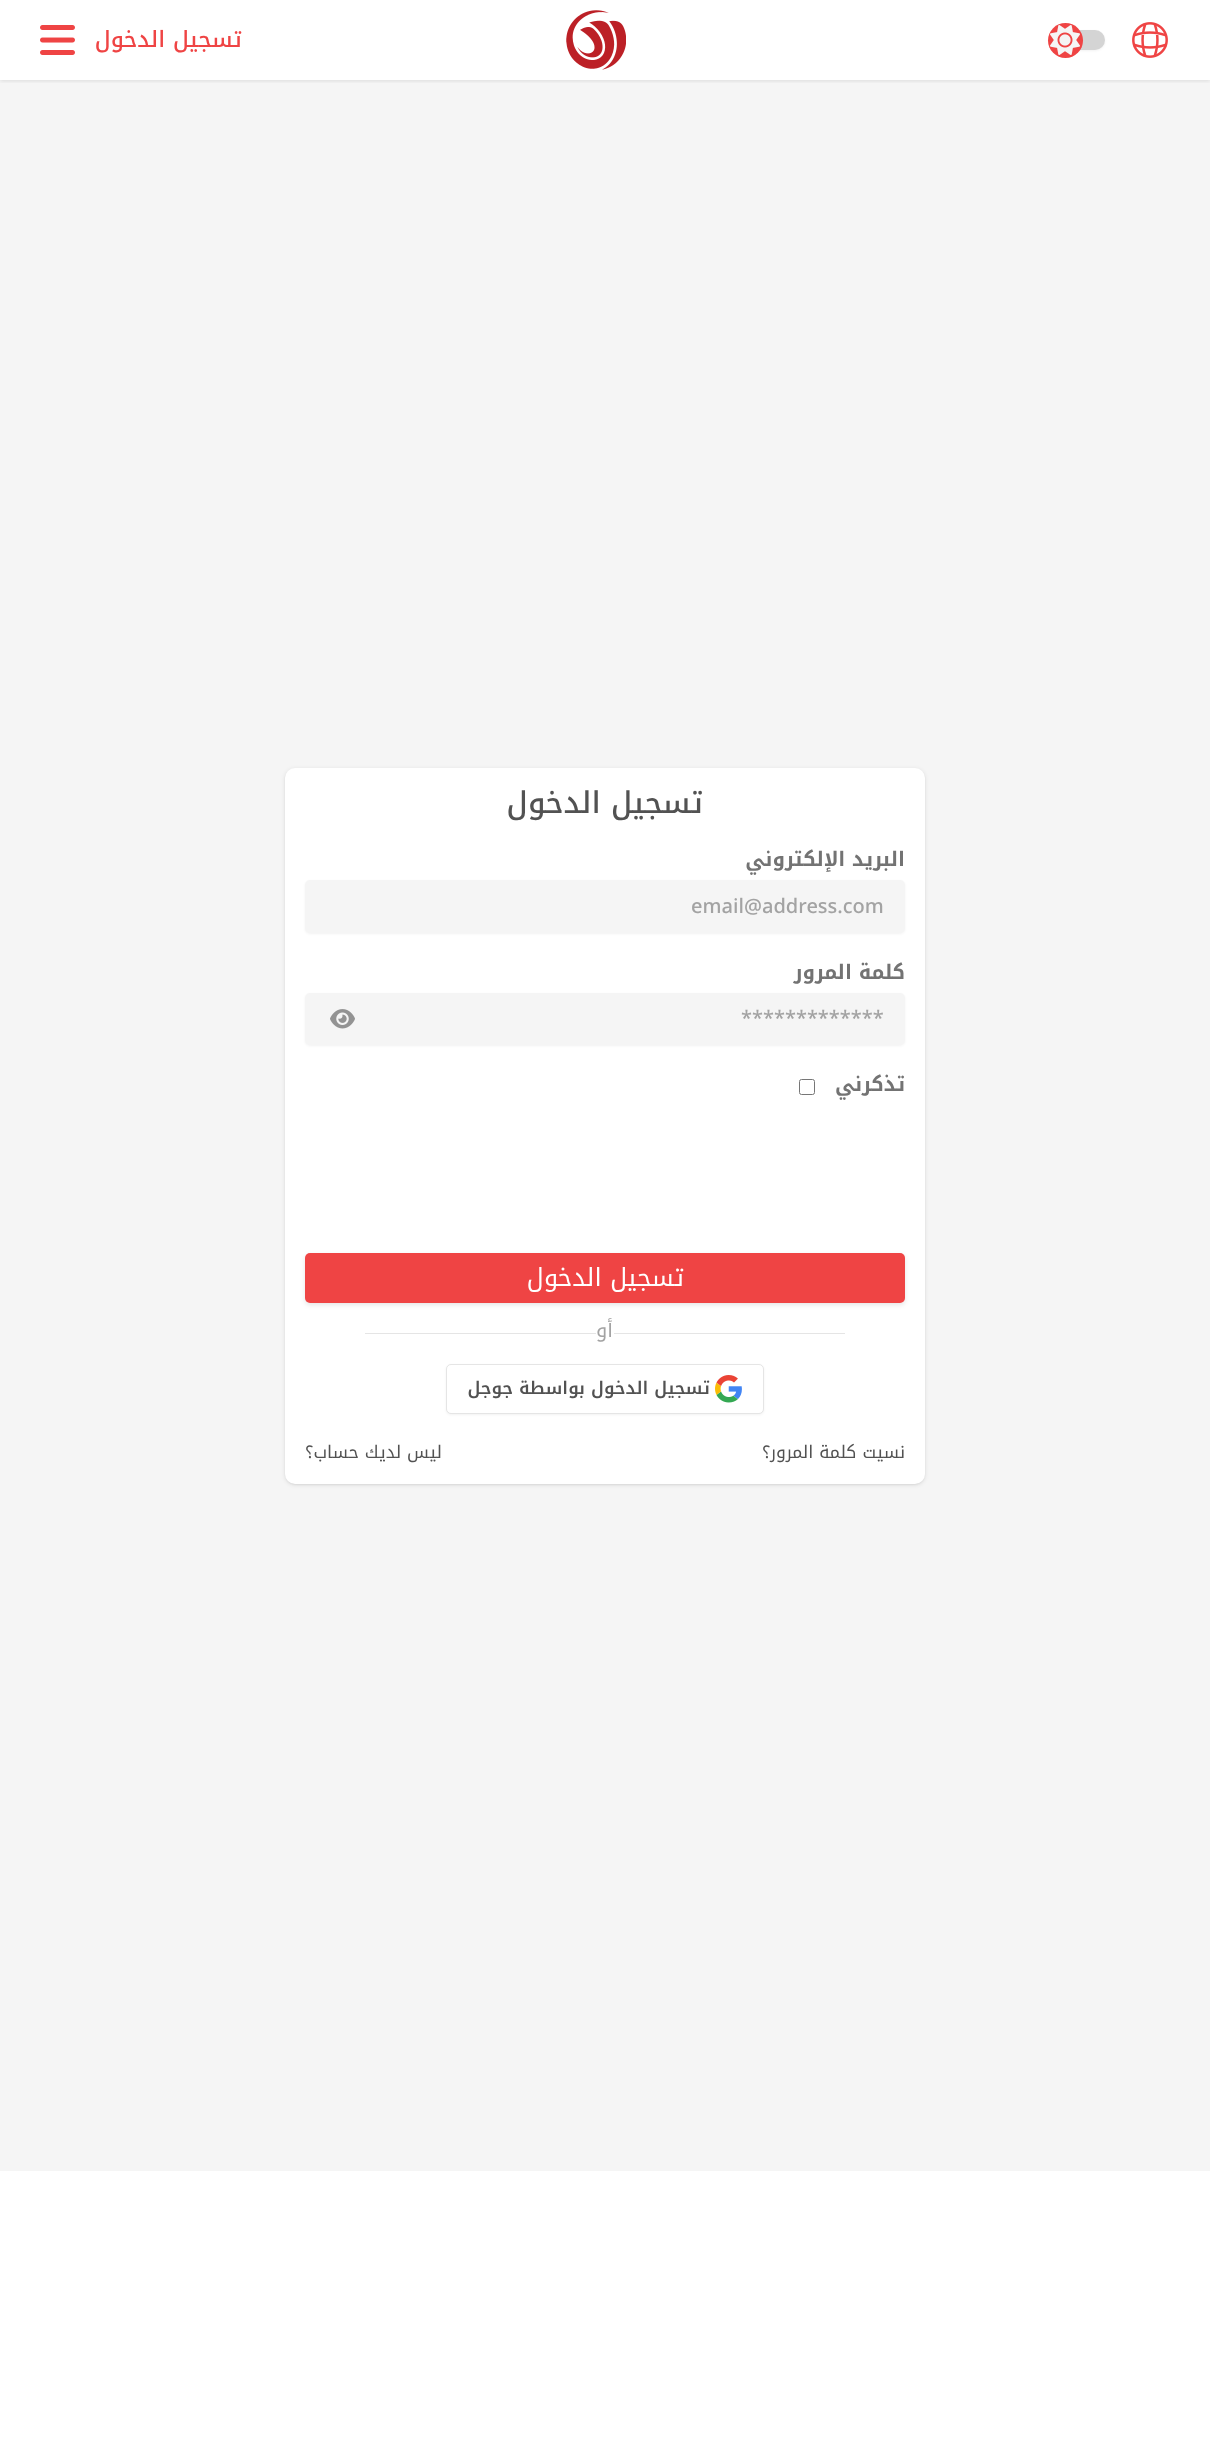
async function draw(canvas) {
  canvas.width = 1210
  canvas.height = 2460
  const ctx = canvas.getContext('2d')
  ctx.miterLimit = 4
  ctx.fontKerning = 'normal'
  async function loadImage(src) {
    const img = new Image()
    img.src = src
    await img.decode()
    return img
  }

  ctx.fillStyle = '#fff'
  ctx.fillRect(0, 0, 1210, 2460)
  ctx.fillStyle = '#f5f5f5'
  ctx.fillRect(0, 80, 1210, 2091)
  ctx.save()
  ctx.beginPath()
  ctx.rect(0, 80, 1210, 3)
  ctx.clip()
  ctx.fillStyle = '#0000001a'
  ctx.filter = 'blur(2px)'
  ctx.beginPath()
  ctx.rect(0, 1, 1210, 80)
  ctx.fill()
  ctx.filter = 'none'
  ctx.restore()
  ctx.drawImage(await loadImage('image0.png'), 1132, 22, 36, 36)
  ctx.fillStyle = '#0000000d'
  ctx.filter = 'blur(1px)'
  ctx.beginPath()
  ctx.roundRect(1065, 31, 40, 20, 10)
  ctx.fill()
  ctx.filter = 'none'
  ctx.fillStyle = '#d4d4d4'
  ctx.beginPath()
  ctx.roundRect(1065, 30, 40, 20, 10)
  ctx.fill()
  ctx.fillStyle = '#ef4444'
  ctx.beginPath()
  ctx.arc(1065.5, 40.5, 17.5, 0, 2 * Math.PI)
  ctx.fill()
  ctx.drawImage(await loadImage('image1.png'), 1050, 25, 30, 30)
  ctx.drawImage(await loadImage('image2.png'), 566, 10, 60, 60)
  ctx.direction = 'rtl'
  ctx.font = '500 22.5px Noto Kufi Arabic'
  ctx.fillText('تسجيل الدخول', 242, 47)
  ctx.drawImage(await loadImage('image3.png'), 40, 25, 35, 30)
  ctx.fillStyle = '#0000001a'
  ctx.filter = 'blur(1px)'
  ctx.beginPath()
  ctx.roundRect(286, 770, 638, 714, 9)
  ctx.fill()
  ctx.filter = 'none'
  ctx.filter = 'blur(2px)'
  ctx.beginPath()
  ctx.roundRect(285, 769, 640, 716, 10)
  ctx.fill()
  ctx.filter = 'none'
  ctx.fillStyle = '#fff'
  ctx.beginPath()
  ctx.roundRect(285, 768, 640, 716, 10)
  ctx.fill()
  ctx.font = '500 30px Noto Kufi Arabic'
  ctx.fillStyle = '#525252'
  ctx.fillText('تسجيل الدخول', 703, 813)
  ctx.font = 'bold 20px Noto Kufi Arabic'
  ctx.fillStyle = '#737373'
  ctx.fillText('البريد الإلكتروني', 905, 866)
  ctx.fillStyle = '#0000000d'
  ctx.filter = 'blur(1px)'
  ctx.beginPath()
  ctx.roundRect(305, 881, 600, 53, 5)
  ctx.fill()
  ctx.filter = 'none'
  ctx.fillStyle = '#f5f5f5'
  ctx.beginPath()
  ctx.roundRect(305, 880, 600, 53, 5)
  ctx.fill()
  ctx.direction = 'ltr'
  ctx.font = '500 20px Noto Kufi Arabic'
  ctx.fillStyle = '#a3a3a3'
  ctx.fillText('email@address.com', 691, 913)
  ctx.direction = 'rtl'
  ctx.font = 'bold 20px Noto Kufi Arabic'
  ctx.fillStyle = '#737373'
  ctx.fillText('كلمة المرور', 905, 979)
  ctx.fillStyle = '#0000000d'
  ctx.filter = 'blur(1px)'
  ctx.beginPath()
  ctx.roundRect(305, 994, 600, 52, 5)
  ctx.fill()
  ctx.filter = 'none'
  ctx.fillStyle = '#f5f5f5'
  ctx.beginPath()
  ctx.roundRect(305, 993, 600, 52, 5)
  ctx.fill()
  ctx.direction = 'ltr'
  ctx.font = '500 20px Noto Kufi Arabic'
  ctx.fillStyle = '#a3a3a3'
  ctx.fillText('*************', 741, 1025)
  ctx.drawImage(await loadImage('image4.png'), 330, 1009, 25, 20)
  ctx.direction = 'rtl'
  ctx.font = 'bold 20px Noto Kufi Arabic'
  ctx.fillStyle = '#737373'
  ctx.fillText('تذكرني', 905, 1091)
  ctx.beginPath()
  ctx.roundRect(799.5, 1079.5, 15, 15, 2)
  ctx.strokeStyle = '#767676'
  ctx.stroke()
  ctx.fillStyle = '#0000001a'
  ctx.filter = 'blur(2.5px)'
  ctx.beginPath()
  ctx.roundRect(305, 1255, 600, 50, 5)
  ctx.fill()
  ctx.filter = 'none'
  ctx.fillStyle = '#ef4444'
  ctx.beginPath()
  ctx.roundRect(305, 1253, 600, 50, 5)
  ctx.fill()
  ctx.font = '25px Noto Kufi Arabic'
  ctx.fillStyle = '#fff'
  ctx.fillText('تسجيل الدخول', 684, 1286)
  ctx.fillStyle = '#e5e5e5'
  ctx.fillRect(365, 1333, 480, 1)
  ctx.fillStyle = '#fff'
  ctx.fillRect(596, 1333, 18, 1)
  ctx.font = '20px Noto Kufi Arabic'
  ctx.fillStyle = '#a3a3a3'
  ctx.fillText('أو', 613, 1337)
  ctx.fillStyle = '#0000000d'
  ctx.filter = 'blur(1px)'
  ctx.beginPath()
  ctx.roundRect(446, 1365, 318, 50, 5)
  ctx.fill()
  ctx.filter = 'none'
  ctx.fillStyle = '#fff'
  ctx.beginPath()
  ctx.roundRect(446.5, 1364.5, 317, 49, 4.5)
  ctx.fill()
  ctx.strokeStyle = '#e5e5e5'
  ctx.stroke()
  ctx.drawImage(await loadImage('image5.png'), 715, 1375, 27, 28)
  ctx.font = '600 17.5px Noto Kufi Arabic'
  ctx.fillStyle = '#525252'
  ctx.fillText('تسجيل الدخول بواسطة جوجل', 710, 1394)
  ctx.font = '17.5px Noto Kufi Arabic'
  ctx.fillText('نسيت كلمة المرور؟', 905, 1458)
  ctx.fillText('ليس لديك حساب؟', 442, 1458)
}

draw(document.querySelector('canvas'))
